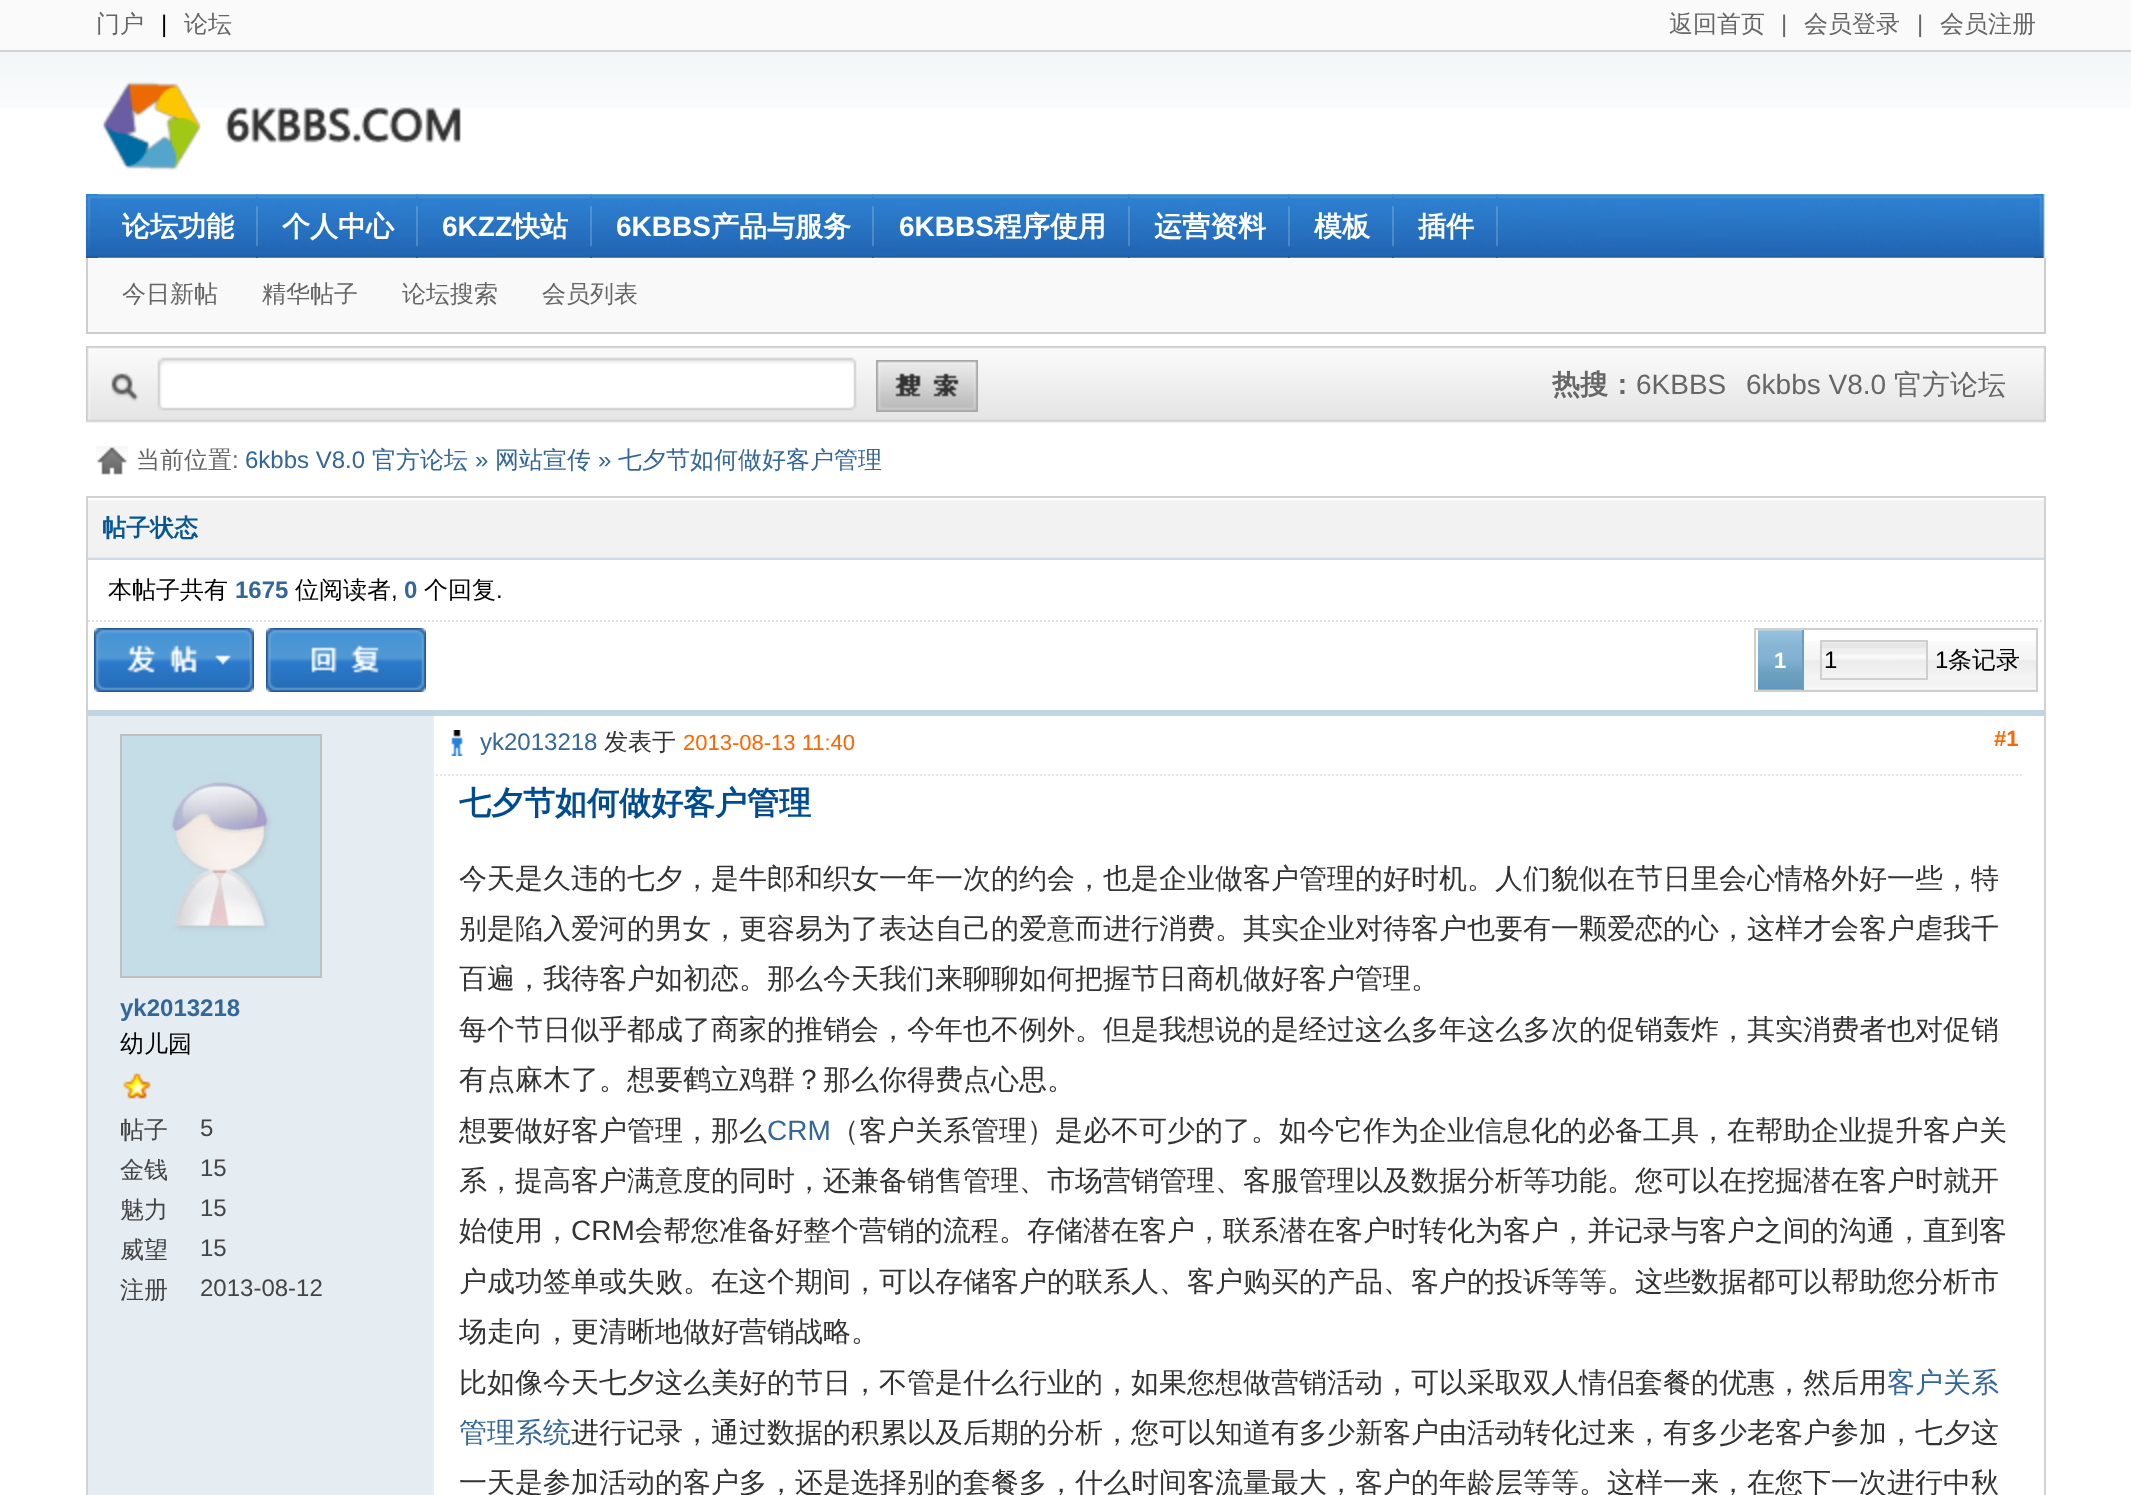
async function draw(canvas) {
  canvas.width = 2131
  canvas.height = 1495
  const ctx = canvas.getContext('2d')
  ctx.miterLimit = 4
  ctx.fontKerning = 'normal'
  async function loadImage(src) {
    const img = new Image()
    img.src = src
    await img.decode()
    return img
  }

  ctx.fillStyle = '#fff'
  ctx.fillRect(0, 0, 2131, 1495)
  ctx.drawImage(await loadImage('image0.png'), 0, 52, 2131, 56)
  ctx.fillStyle = '#fafafa'
  ctx.fillRect(0, 0, 2131, 50)
  ctx.fillStyle = '#d2d2d2'
  ctx.fillRect(0, 50, 2131, 2)
  ctx.font = '500 24px WenQuanYi Zen Hei'
  ctx.fillStyle = '#666'
  ctx.fillText('门户', 96, 32)
  ctx.font = '24px Liberation Sans'
  ctx.fillStyle = '#000'
  ctx.fillText('|', 161, 32)
  ctx.font = '500 24px WenQuanYi Zen Hei'
  ctx.fillStyle = '#666'
  ctx.fillText('论坛', 184, 32)
  ctx.fillText('返回首页', 1669, 32)
  ctx.font = '24px Liberation Sans'
  ctx.fillText('|', 1781, 32)
  ctx.font = '500 24px WenQuanYi Zen Hei'
  ctx.fillText('会员登录', 1804, 32)
  ctx.font = '24px Liberation Sans'
  ctx.fillText('|', 1917, 32)
  ctx.font = '500 24px WenQuanYi Zen Hei'
  ctx.fillText('会员注册', 1940, 32)
  ctx.drawImage(await loadImage('image1.png'), 102, 81, 359, 90)
  ctx.drawImage(await loadImage('image2.png'), 86, 194, 12, 64)
  ctx.drawImage(await loadImage('image3.png'), 98, 194, 1936, 64)
  ctx.drawImage(await loadImage('image4.png'), 256, 194, 2, 64)
  ctx.font = 'bold 28px WenQuanYi Zen Hei'
  ctx.fillStyle = '#fff'
  ctx.fillText('论坛功能', 122, 236)
  ctx.drawImage(await loadImage('image4.png'), 416, 194, 2, 64)
  ctx.fillText('个人中心', 282, 236)
  ctx.drawImage(await loadImage('image4.png'), 590, 194, 2, 64)
  ctx.font = 'bold 28px Liberation Sans'
  ctx.fillText('6KZZ', 442, 236)
  ctx.font = 'bold 28px WenQuanYi Zen Hei'
  ctx.fillText('快站', 512, 236)
  ctx.drawImage(await loadImage('image4.png'), 872, 194, 2, 64)
  ctx.font = 'bold 28px Liberation Sans'
  ctx.fillText('6KBBS', 616, 236)
  ctx.font = 'bold 28px WenQuanYi Zen Hei'
  ctx.fillText('产品与服务', 711, 236)
  ctx.drawImage(await loadImage('image4.png'), 1128, 194, 2, 64)
  ctx.font = 'bold 28px Liberation Sans'
  ctx.fillText('6KBBS', 899, 236)
  ctx.font = 'bold 28px WenQuanYi Zen Hei'
  ctx.fillText('程序使用', 994, 236)
  ctx.drawImage(await loadImage('image4.png'), 1288, 194, 2, 64)
  ctx.fillText('运营资料', 1154, 236)
  ctx.drawImage(await loadImage('image4.png'), 1392, 194, 2, 64)
  ctx.fillText('模板', 1314, 236)
  ctx.drawImage(await loadImage('image4.png'), 1496, 194, 2, 64)
  ctx.fillText('插件', 1418, 236)
  ctx.drawImage(await loadImage('image5.png'), 2034, 194, 11, 64)
  ctx.fillStyle = '#f9f9f9'
  ctx.fillRect(88, 258, 1956, 74)
  ctx.fillStyle = '#cdcdcd'
  ctx.fillRect(2044, 258, 2, 76)
  ctx.fillRect(86, 332, 1960, 2)
  ctx.fillRect(86, 258, 2, 76)
  ctx.font = '500 24px WenQuanYi Zen Hei'
  ctx.fillStyle = '#666'
  ctx.fillText('今日新帖', 122, 302)
  ctx.fillText('精华帖子', 262, 302)
  ctx.fillText('论坛搜索', 402, 302)
  ctx.fillText('会员列表', 542, 302)
  ctx.drawImage(await loadImage('image6.png'), 86, 346, 1960, 77)
  ctx.drawImage(await loadImage('image7.png'), 876, 360, 102, 52)
  ctx.font = 'bold 28px WenQuanYi Zen Hei'
  ctx.fillText('热搜：', 1552, 394)
  ctx.font = '28px Liberation Sans'
  ctx.fillText('6KBBS', 1636, 394)
  ctx.fillText('6kbbs V8.0', 1746, 394)
  ctx.font = '500 28px WenQuanYi Zen Hei'
  ctx.fillText('官方论坛', 1894, 394)
  ctx.drawImage(await loadImage('image8.png'), 2043, 347, 3, 74)
  ctx.drawImage(await loadImage('image9.png'), 96, 446, 32, 29)
  ctx.font = '500 24px WenQuanYi Zen Hei'
  ctx.fillText('当前位置', 136, 468)
  ctx.font = '24px Liberation Sans'
  ctx.fillText(':', 232, 468)
  ctx.fillStyle = '#369'
  ctx.fillText('6kbbs V8.0', 245, 468)
  ctx.font = '500 24px WenQuanYi Zen Hei'
  ctx.fillText('官方论坛', 372, 468)
  ctx.font = '24px Liberation Sans'
  ctx.fillText('»', 475, 468)
  ctx.font = '500 24px WenQuanYi Zen Hei'
  ctx.fillText('网站宣传', 495, 468)
  ctx.font = '24px Liberation Sans'
  ctx.fillText('»', 598, 468)
  ctx.font = '500 24px WenQuanYi Zen Hei'
  ctx.fillText('七夕节如何做好客户管理', 618, 468)
  ctx.strokeStyle = '#d2d2d2'
  ctx.lineWidth = 2
  ctx.strokeRect(87, 497, 1958, 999)
  ctx.drawImage(await loadImage('image10.png'), 88, 500, 1956, 60)
  ctx.font = 'bold 24px WenQuanYi Zen Hei'
  ctx.fillStyle = '#065792'
  ctx.fillText('帖子状态', 102, 536)
  ctx.beginPath()
  ctx.moveTo(88, 621)
  ctx.lineTo(2044, 621)
  ctx.strokeStyle = '#e0e0e0'
  ctx.setLineDash([2, 2])
  ctx.stroke()
  ctx.font = '500 24px WenQuanYi Zen Hei'
  ctx.fillStyle = '#000'
  ctx.fillText('本帖子共有', 108, 598)
  ctx.font = 'bold 24px Liberation Sans'
  ctx.fillStyle = '#369'
  ctx.fillText('1675', 235, 598)
  ctx.font = '500 24px WenQuanYi Zen Hei'
  ctx.fillStyle = '#000'
  ctx.fillText('位阅读者', 295, 598)
  ctx.font = '24px Liberation Sans'
  ctx.fillText(',', 391, 598)
  ctx.font = 'bold 24px Liberation Sans'
  ctx.fillStyle = '#369'
  ctx.fillText('0', 404, 598)
  ctx.font = '500 24px WenQuanYi Zen Hei'
  ctx.fillStyle = '#000'
  ctx.fillText('个回复', 424, 598)
  ctx.font = '24px Liberation Sans'
  ctx.fillText('.', 496, 598)
  ctx.drawImage(await loadImage('image11.png'), 94, 628, 160, 64)
  ctx.drawImage(await loadImage('image12.png'), 266, 628, 160, 64)
  ctx.drawImage(await loadImage('image13.png'), 1758, 689, 44, 1)
  ctx.fillStyle = '#cecfca'
  ctx.fillRect(1754, 628, 284, 2)
  ctx.fillRect(1754, 690, 50, 2)
  ctx.fillRect(1754, 628, 2, 64)
  ctx.drawImage(await loadImage('image14.png'), 1758, 630, 44, 60)
  ctx.fillStyle = '#6b9fc0'
  ctx.fillRect(1802, 630, 2, 60)
  ctx.font = 'bold 22px Liberation Sans'
  ctx.fillStyle = '#fff'
  ctx.fillText('1', 1774, 668)
  ctx.drawImage(await loadImage('image15.png'), 1804, 641, 232, 49)
  ctx.fillStyle = '#cecfca'
  ctx.fillRect(2036, 628, 2, 64)
  ctx.fillRect(1804, 690, 234, 2)
  ctx.drawImage(await loadImage('image16.png'), 1822, 642, 104, 16)
  ctx.strokeStyle = '#cfcfcd'
  ctx.setLineDash([])
  ctx.strokeRect(1821, 641, 106, 38)
  ctx.font = '24px Liberation Sans'
  ctx.fillStyle = '#000'
  ctx.fillText('1', 1824, 668)
  ctx.fillText('1', 1935, 668)
  ctx.font = '500 24px WenQuanYi Zen Hei'
  ctx.fillText('条记录', 1948, 668)
  ctx.fillStyle = '#e4eff5'
  ctx.fillRect(432, 712, 2, 783)
  ctx.fillStyle = '#c2d5e3'
  ctx.fillRect(88, 710, 1956, 6)
  ctx.fillStyle = '#e5edf2'
  ctx.fillRect(88, 716, 344, 779)
  ctx.strokeStyle = '#c0c0c0'
  ctx.strokeRect(121, 735, 200, 242)
  ctx.drawImage(await loadImage('image17.png'), 122, 736, 198, 240)
  ctx.font = 'bold 24px Liberation Sans'
  ctx.fillStyle = '#369'
  ctx.fillText('yk2013218', 120, 1016)
  ctx.font = '500 24px WenQuanYi Zen Hei'
  ctx.fillStyle = '#000'
  ctx.fillText('幼儿园', 120, 1052)
  ctx.drawImage(await loadImage('image18.png'), 123, 1073, 28, 26)
  ctx.fillStyle = '#444'
  ctx.fillText('帖子', 120, 1138)
  ctx.font = '24px Liberation Sans'
  ctx.fillText('5', 200, 1136)
  ctx.font = '500 24px WenQuanYi Zen Hei'
  ctx.fillText('金钱', 120, 1178)
  ctx.font = '24px Liberation Sans'
  ctx.fillText('15', 200, 1176)
  ctx.font = '500 24px WenQuanYi Zen Hei'
  ctx.fillText('魅力', 120, 1218)
  ctx.font = '24px Liberation Sans'
  ctx.fillText('15', 200, 1216)
  ctx.font = '500 24px WenQuanYi Zen Hei'
  ctx.fillText('威望', 120, 1258)
  ctx.font = '24px Liberation Sans'
  ctx.fillText('15', 200, 1256)
  ctx.font = '500 24px WenQuanYi Zen Hei'
  ctx.fillText('注册', 120, 1298)
  ctx.font = '24px Liberation Sans'
  ctx.fillText('2013-08-12', 200, 1296)
  ctx.beginPath()
  ctx.moveTo(436, 775)
  ctx.lineTo(1844, 775)
  ctx.strokeStyle = '#e6e7e1'
  ctx.setLineDash([2, 2])
  ctx.stroke()
  ctx.drawImage(await loadImage('image19.png'), 451, 730, 12, 26)
  ctx.fillStyle = '#369'
  ctx.fillText('yk2013218', 480, 750)
  ctx.font = '500 24px WenQuanYi Zen Hei'
  ctx.fillStyle = '#333'
  ctx.fillText('发表于', 604, 750)
  ctx.font = '22px Liberation Sans'
  ctx.fillStyle = '#f60'
  ctx.fillText('2013-08-13 11:40', 683, 750)
  ctx.beginPath()
  ctx.moveTo(1844, 775)
  ctx.lineTo(2024, 775)
  ctx.stroke()
  ctx.font = 'bold 22px Liberation Sans'
  ctx.fillText('#1', 1994, 746)
  ctx.font = 'bold 32px WenQuanYi Zen Hei'
  ctx.fillStyle = '#014c90'
  ctx.fillText('七夕节如何做好客户管理', 459, 814)
  ctx.font = '500 28px WenQuanYi Zen Hei'
  ctx.fillStyle = '#333'
  ctx.fillText('今天是久违的七夕，是牛郎和织女一年一次的约会，也是企业做客户管理的好时机。人们貌似在节日里会心情格外好一些，特', 459, 888)
  ctx.fillText('别是陷入爱河的男女，更容易为了表达自己的爱意而进行消费。其实企业对待客户也要有一颗爱恋的心，这样才会客户虐我千', 459, 938)
  ctx.fillText('百遍，我待客户如初恋。那么今天我们来聊聊如何把握节日商机做好客户管理。', 459, 988)
  ctx.fillText('每个节日似乎都成了商家的推销会，今年也不例外。但是我想说的是经过这么多年这么多次的促销轰炸，其实消费者也对促销', 459, 1039)
  ctx.fillText('有点麻木了。想要鹤立鸡群？那么你得费点心思。', 459, 1089)
  ctx.fillText('想要做好客户管理，那么', 459, 1140)
  ctx.font = '28px Liberation Sans'
  ctx.fillStyle = '#369'
  ctx.fillText('CRM', 767, 1140)
  ctx.font = '500 28px WenQuanYi Zen Hei'
  ctx.fillStyle = '#333'
  ctx.fillText('（客户关系管理）是必不可少的了。如今它作为企业信息化的必备工具，在帮助企业提升客户关', 831, 1140)
  ctx.fillText('系，提高客户满意度的同时，还兼备销售管理、市场营销管理、客服管理以及数据分析等功能。您可以在挖掘潜在客户时就开', 459, 1190)
  ctx.fillText('始使用，', 459, 1240)
  ctx.font = '28px Liberation Sans'
  ctx.fillText('CRM', 571, 1240)
  ctx.font = '500 28px WenQuanYi Zen Hei'
  ctx.fillText('会帮您准备好整个营销的流程。存储潜在客户，联系潜在客户时转化为客户，并记录与客户之间的沟通，直到客', 635, 1240)
  ctx.fillText('户成功签单或失败。在这个期间，可以存储客户的联系人、客户购买的产品、客户的投诉等等。这些数据都可以帮助您分析市', 459, 1291)
  ctx.fillText('场走向，更清晰地做好营销战略。', 459, 1341)
  ctx.fillText('比如像今天七夕这么美好的节日，不管是什么行业的，如果您想做营销活动，可以采取双人情侣套餐的优惠，然后用', 459, 1392)
  ctx.fillStyle = '#369'
  ctx.fillText('客户关系', 1887, 1392)
  ctx.fillText('管理系统', 459, 1442)
  ctx.fillStyle = '#333'
  ctx.fillText('进行记录，通过数据的积累以及后期的分析，您可以知道有多少新客户由活动转化过来，有多少老客户参加，七夕这', 571, 1442)
  ctx.fillText('一天是参加活动的客户多，还是选择别的套餐多，什么时间客流量最大，客户的年龄层等等。这样一来，在您下一次进行中秋', 459, 1492)
}

draw(document.querySelector('canvas'))
